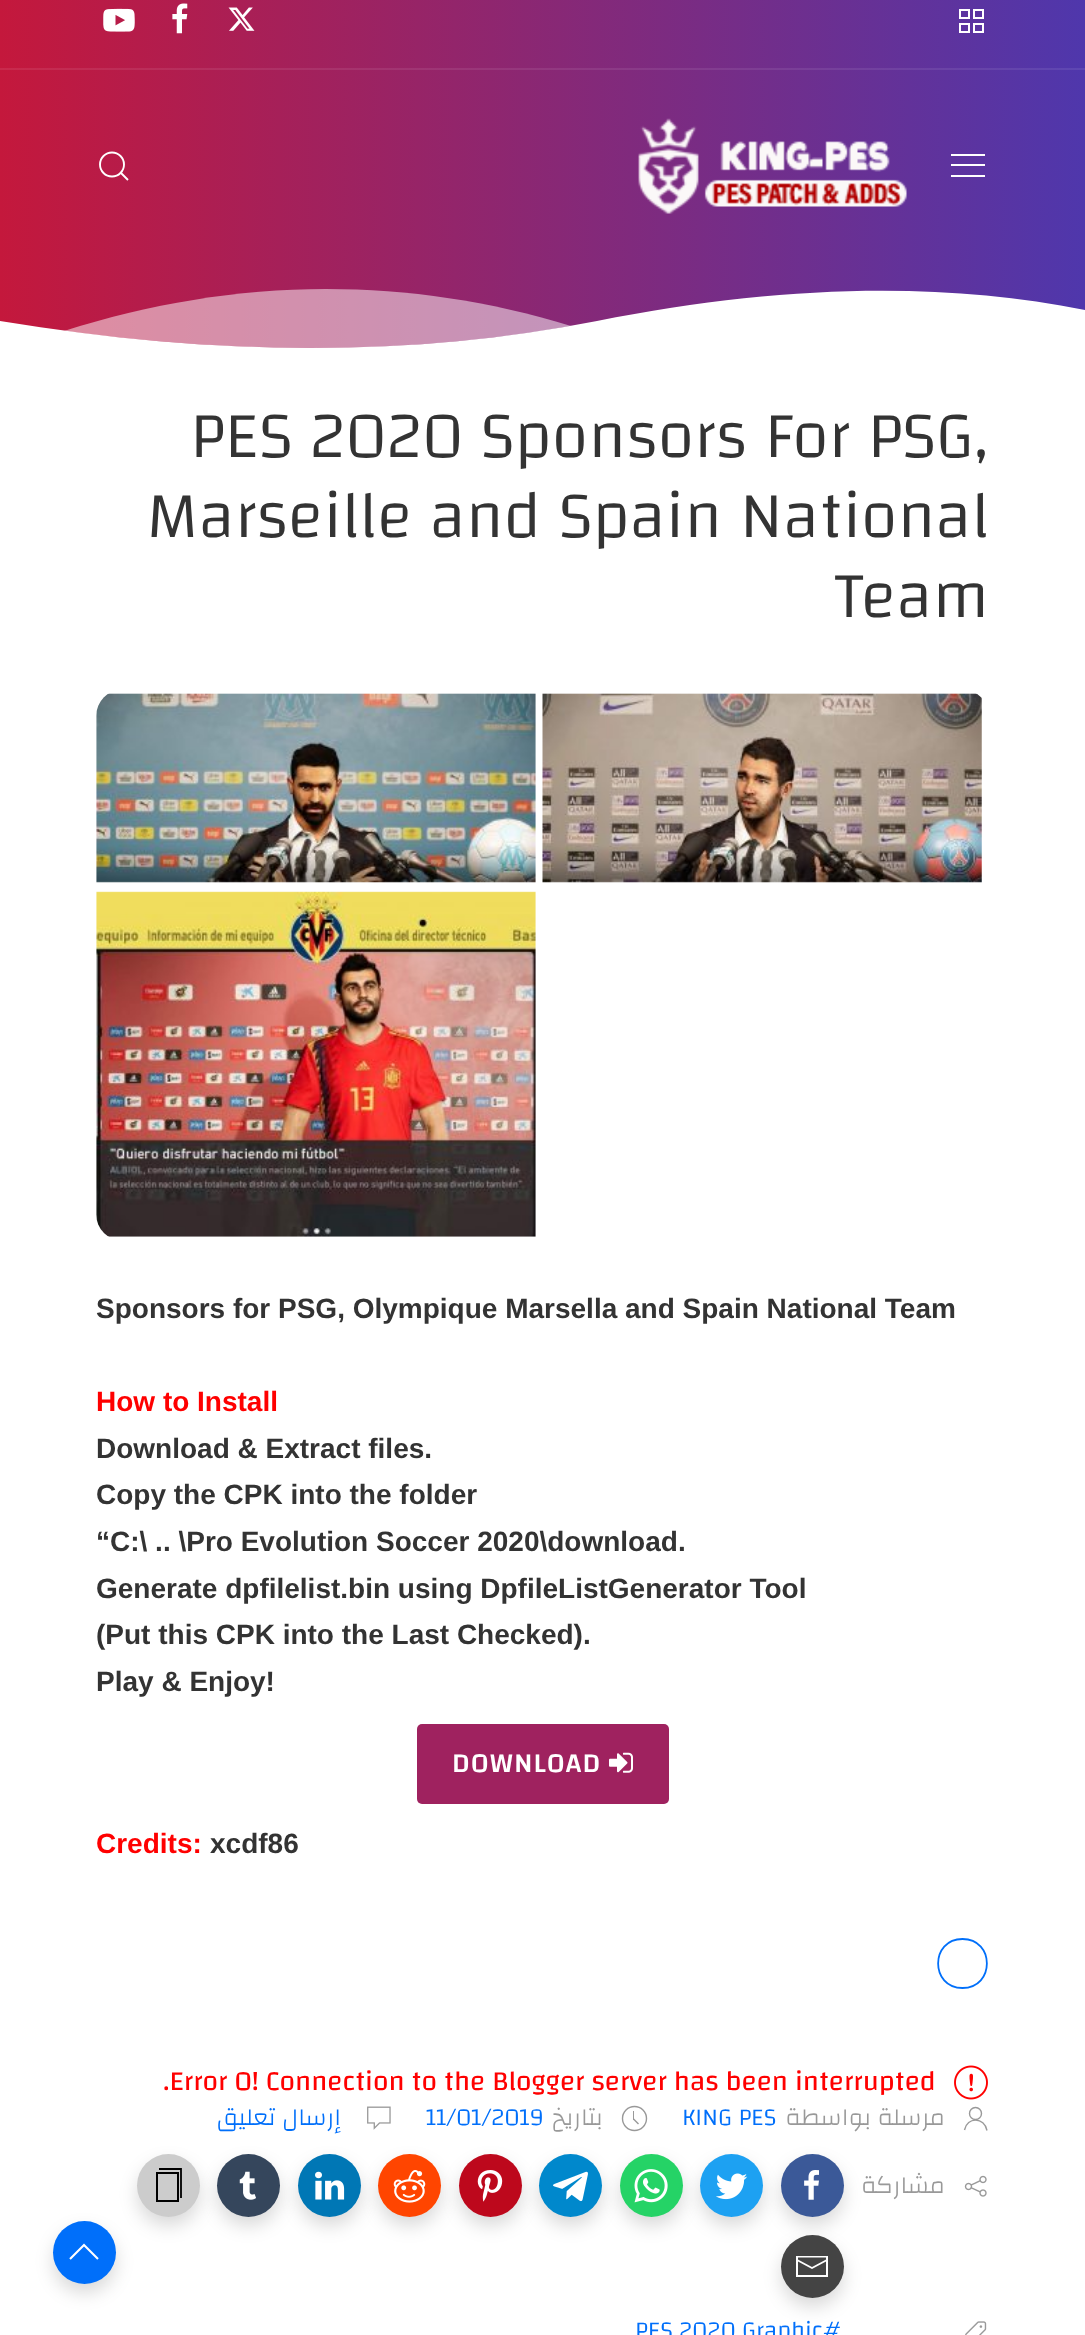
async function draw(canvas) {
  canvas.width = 1085
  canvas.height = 2335
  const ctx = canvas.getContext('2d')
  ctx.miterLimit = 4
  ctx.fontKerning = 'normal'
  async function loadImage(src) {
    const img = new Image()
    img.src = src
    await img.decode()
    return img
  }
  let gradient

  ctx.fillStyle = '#fff'
  ctx.fillRect(0, 0, 1085, 2335)
  ctx.fillStyle = '#00000026'
  ctx.filter = 'blur(9px)'
  ctx.beginPath()
  ctx.roundRect(781, 2163, 63, 63, 31.5)
  ctx.fill()
  ctx.filter = 'none'
  ctx.fillStyle = '#3b5998'
  ctx.beginPath()
  ctx.arc(812.5, 2185.5, 31.5, 0, 2 * Math.PI)
  ctx.fill()
  ctx.fillStyle = '#00000026'
  ctx.filter = 'blur(9px)'
  ctx.beginPath()
  ctx.roundRect(700, 2163, 63, 63, 31.5)
  ctx.fill()
  ctx.filter = 'none'
  ctx.fillStyle = '#1da1f2'
  ctx.beginPath()
  ctx.arc(731.5, 2185.5, 31.5, 0, 2 * Math.PI)
  ctx.fill()
  ctx.fillStyle = '#00000026'
  ctx.filter = 'blur(9px)'
  ctx.beginPath()
  ctx.roundRect(620, 2163, 63, 63, 31.5)
  ctx.fill()
  ctx.filter = 'none'
  ctx.fillStyle = '#25d366'
  ctx.beginPath()
  ctx.arc(651.5, 2185.5, 31.5, 0, 2 * Math.PI)
  ctx.fill()
  ctx.fillStyle = '#00000026'
  ctx.filter = 'blur(9px)'
  ctx.beginPath()
  ctx.roundRect(539, 2163, 63, 63, 31.5)
  ctx.fill()
  ctx.filter = 'none'
  ctx.fillStyle = '#08c'
  ctx.beginPath()
  ctx.arc(570.5, 2185.5, 31.5, 0, 2 * Math.PI)
  ctx.fill()
  ctx.fillStyle = '#00000026'
  ctx.filter = 'blur(9px)'
  ctx.beginPath()
  ctx.roundRect(459, 2163, 63, 63, 31.5)
  ctx.fill()
  ctx.filter = 'none'
  ctx.fillStyle = '#bd081c'
  ctx.beginPath()
  ctx.arc(490.5, 2185.5, 31.5, 0, 2 * Math.PI)
  ctx.fill()
  ctx.fillStyle = '#00000026'
  ctx.filter = 'blur(9px)'
  ctx.beginPath()
  ctx.roundRect(378, 2163, 63, 63, 31.5)
  ctx.fill()
  ctx.filter = 'none'
  ctx.fillStyle = '#ff4500'
  ctx.beginPath()
  ctx.arc(409.5, 2185.5, 31.5, 0, 2 * Math.PI)
  ctx.fill()
  ctx.fillStyle = '#00000026'
  ctx.filter = 'blur(9px)'
  ctx.beginPath()
  ctx.roundRect(298, 2163, 63, 63, 31.5)
  ctx.fill()
  ctx.filter = 'none'
  ctx.fillStyle = '#0077b5'
  ctx.beginPath()
  ctx.arc(329.5, 2185.5, 31.5, 0, 2 * Math.PI)
  ctx.fill()
  ctx.fillStyle = '#00000026'
  ctx.filter = 'blur(9px)'
  ctx.beginPath()
  ctx.roundRect(217, 2163, 63, 63, 31.5)
  ctx.fill()
  ctx.filter = 'none'
  ctx.fillStyle = '#35465c'
  ctx.beginPath()
  ctx.arc(248.5, 2185.5, 31.5, 0, 2 * Math.PI)
  ctx.fill()
  ctx.fillStyle = '#00000026'
  ctx.filter = 'blur(9px)'
  ctx.beginPath()
  ctx.roundRect(137, 2163, 63, 63, 31.5)
  ctx.fill()
  ctx.filter = 'none'
  ctx.fillStyle = '#ccc'
  ctx.beginPath()
  ctx.arc(168.5, 2185.5, 31.5, 0, 2 * Math.PI)
  ctx.fill()
  ctx.fillStyle = '#00000026'
  ctx.filter = 'blur(9px)'
  ctx.beginPath()
  ctx.roundRect(53, 2230, 63, 63, 31.5)
  ctx.fill()
  ctx.filter = 'none'
  ctx.fillStyle = '#006ffa'
  ctx.beginPath()
  ctx.arc(84.5, 2252.5, 31.5, 0, 2 * Math.PI)
  ctx.fill()
  ctx.beginPath()
  ctx.moveTo(70, 2259)
  ctx.lineTo(84, 2245)
  ctx.lineTo(98, 2259)
  ctx.strokeStyle = '#fff'
  ctx.lineWidth = 2.1
  ctx.stroke()
  gradient = ctx.createLinearGradient(0, 163, 1085, 163)
  gradient.addColorStop(0, '#c4183c')
  gradient.addColorStop(1, '#4f37ac')
  ctx.fillStyle = gradient
  ctx.fillRect(0, 0, 1085, 289)
  gradient = ctx.createLinearGradient(0, 163, 1085, 163)
  gradient.addColorStop(0, '#c92a4c')
  gradient.addColorStop(1, '#5d47b3')
  ctx.fillStyle = gradient
  ctx.fillRect(0, 68, 1085, 2)
  ctx.drawImage(await loadImage('image0.png'), 103, 8, 32, 24)
  ctx.drawImage(await loadImage('image1.png'), 172, 3, 16, 31)
  ctx.drawImage(await loadImage('image2.png'), 228, 7, 27, 24)
  ctx.lineWidth = 2
  ctx.strokeRect(960, 10, 9, 8)
  ctx.strokeRect(974, 10, 9, 8)
  ctx.strokeRect(960, 24, 9, 8)
  ctx.strokeRect(974, 24, 9, 8)
  ctx.beginPath()
  ctx.arc(112, 164.5, 12, 0, 2 * Math.PI)
  ctx.lineWidth = 1.9
  ctx.stroke()
  ctx.beginPath()
  ctx.moveTo(121, 173)
  ctx.lineTo(128, 180)
  ctx.closePath()
  ctx.stroke()
  ctx.drawImage(await loadImage('image3.png'), 638, 118, 269, 96)
  ctx.fillStyle = '#fff'
  ctx.fillRect(951, 154, 34, 2)
  ctx.fillRect(951, 164, 34, 2)
  ctx.fillRect(951, 175, 34, 2)
  ctx.save()
  ctx.beginPath()
  ctx.rect(0, 289, 1085, 65)
  ctx.clip()
  gradient = ctx.createLinearGradient(0, 278, 1085, 278)
  gradient.addColorStop(0, '#c4183c')
  gradient.addColorStop(1, '#4f37ac')
  ctx.fillStyle = gradient
  ctx.beginPath()
  ctx.moveTo(0, 278)
  ctx.lineTo(0, 321)
  ctx.bezierCurveTo(217, 357, 415, 357, 597, 321)
  ctx.bezierCurveTo(778, 285, 940, 281, 1085, 310)
  ctx.lineTo(1085, 278)
  ctx.closePath()
  ctx.fill()
  ctx.restore()
  ctx.fillStyle = '#ffffff80'
  ctx.beginPath()
  ctx.moveTo(326, 289)
  ctx.bezierCurveTo(408, 289, 490, 301, 571, 326)
  ctx.bezierCurveTo(415, 354, 246, 355, 64, 331)
  ctx.bezierCurveTo(149, 304, 237, 289, 326, 289)
  ctx.closePath()
  ctx.fill()
  ctx.font = '300 66.5px Changa'
  ctx.fillStyle = '#333'
  ctx.fillText('PES 2020 Sponsors For PSG,', 190, 457)
  ctx.fillText('Marseille and Spain National', 146, 537)
  ctx.fillText('Team', 834, 617)
  ctx.drawImage(await loadImage('image4.png'), 96, 693, 886, 544)
  ctx.font = 'bold 28px Liberation Sans'
  ctx.fillText('Sponsors for PSG, Olympique Marsella and Spain National Team', 96, 1318)
  ctx.fillStyle = '#f00'
  ctx.fillText('How to Install', 96, 1411)
  ctx.fillStyle = '#333'
  ctx.fillText('Download & Extract files.', 96, 1458)
  ctx.fillText('Copy the CPK into the folder', 96, 1504)
  ctx.fillText('“C:\\ .. \\Pro Evolution Soccer 2020\\download.', 96, 1551)
  ctx.fillText('Generate dpfilelist.bin using DpfileListGenerator Tool', 96, 1598)
  ctx.fillText('(Put this CPK into the Last Checked).', 96, 1644)
  ctx.fillText('Play & Enjoy!', 96, 1691)
  ctx.fillStyle = '#9f225f'
  ctx.beginPath()
  ctx.roundRect(417, 1724, 252, 80, 5)
  ctx.fill()
  ctx.letterSpacing = '1px'
  ctx.font = '500 28px Changa'
  ctx.fillStyle = '#fff'
  ctx.fillText('DOWNLOAD', 452, 1772)
  ctx.drawImage(await loadImage('image5.png'), 609, 1752, 24, 21)
  ctx.letterSpacing = '0px'
  ctx.font = 'bold 28px Liberation Sans'
  ctx.fillStyle = '#f00'
  ctx.fillText('Credits:', 96, 1853)
  ctx.fillStyle = '#333'
  ctx.fillText('xcdf86', 210, 1853)
  ctx.beginPath()
  ctx.moveTo(962.5, 1939)
  ctx.bezierCurveTo(995, 1939, 995, 1988, 962.5, 1988)
  ctx.bezierCurveTo(930, 1988, 930, 1939, 962.5, 1939)
  ctx.strokeStyle = '#006ffa'
  ctx.lineWidth = 1.8
  ctx.lineCap = 'round'
  ctx.stroke()
  ctx.font = '28px Changa'
  ctx.fillStyle = '#f00'
  ctx.fillText('.Error 0! Connection to the Blogger server has been interrupted', 163, 2090)
  ctx.drawImage(await loadImage('image6.png'), 954, 2065, 34, 35)
  ctx.direction = 'rtl'
  ctx.font = '300 24.5px Changa'
  ctx.fillStyle = '#006ffa'
  ctx.fillText('إرسال تعليق', 341, 2125)
  ctx.drawImage(await loadImage('image7.png'), 367, 2106, 24, 24)
  ctx.direction = 'ltr'
  ctx.fillText('11/01/2019', 426, 2125)
  ctx.direction = 'rtl'
  ctx.fillStyle = '#999'
  ctx.fillText('بتاريخ', 603, 2125)
  ctx.beginPath()
  ctx.arc(634.5, 2118.5, 12, 0, 2 * Math.PI)
  ctx.strokeStyle = '#999'
  ctx.lineWidth = 1.4
  ctx.stroke()
  ctx.fillRect(633, 2111, 1, 9)
  ctx.beginPath()
  ctx.moveTo(638.5, 2124)
  ctx.lineTo(633.5, 2119)
  ctx.lineCap = 'butt'
  ctx.stroke()
  ctx.direction = 'ltr'
  ctx.fillStyle = '#006ffa'
  ctx.fillText('KING PES', 682, 2125)
  ctx.direction = 'rtl'
  ctx.fillStyle = '#999'
  ctx.fillText('مرسلة بواسطة', 945, 2125)
  ctx.beginPath()
  ctx.arc(975.5, 2113.5, 6, 0, 2 * Math.PI)
  ctx.stroke()
  ctx.beginPath()
  ctx.moveTo(964.5, 2130)
  ctx.bezierCurveTo(967, 2116.5, 984.5, 2117, 987, 2130.5)
  ctx.stroke()
  ctx.strokeStyle = '#000'
  ctx.lineWidth = 2
  ctx.strokeRect(157, 2173, 21, 28)
  ctx.beginPath()
  ctx.moveTo(159, 2169)
  ctx.lineTo(181, 2169)
  ctx.lineTo(181, 2198)
  ctx.lineWidth = 1.8
  ctx.stroke()
  ctx.drawImage(await loadImage('image8.png'), 239, 2171, 17, 29)
  ctx.drawImage(await loadImage('image9.png'), 315, 2171, 30, 29)
  ctx.drawImage(await loadImage('image10.png'), 393, 2170, 33, 33)
  ctx.drawImage(await loadImage('image11.png'), 477, 2170, 26, 32)
  ctx.drawImage(await loadImage('image12.png'), 553, 2171, 35, 31)
  ctx.drawImage(await loadImage('image13.png'), 634, 2169, 34, 34)
  ctx.drawImage(await loadImage('image14.png'), 716, 2173, 32, 27)
  ctx.drawImage(await loadImage('image15.png'), 804, 2170, 15, 30)
  ctx.fillStyle = '#00000026'
  ctx.filter = 'blur(9px)'
  ctx.beginPath()
  ctx.roundRect(781, 2244, 63, 63, 31.5)
  ctx.fill()
  ctx.filter = 'none'
  ctx.fillStyle = '#444'
  ctx.beginPath()
  ctx.arc(812.5, 2266.5, 31.5, 0, 2 * Math.PI)
  ctx.fill()
  ctx.beginPath()
  ctx.moveTo(797, 2260)
  ctx.lineTo(812, 2268)
  ctx.lineTo(827, 2260)
  ctx.strokeStyle = '#fff'
  ctx.stroke()
  ctx.fillStyle = '#fff'
  ctx.beginPath()
  ctx.moveTo(796, 2256)
  ctx.lineTo(796, 2277)
  ctx.lineTo(828, 2277)
  ctx.lineTo(828, 2256)
  ctx.closePath()
  ctx.moveTo(826, 2275)
  ctx.lineTo(798, 2275)
  ctx.lineTo(798, 2257.5)
  ctx.lineTo(826, 2257.5)
  ctx.closePath()
  ctx.fill()
  ctx.fillStyle = '#999'
  ctx.fillText('مشاركة', 945, 2193)
  ctx.drawImage(await loadImage('image16.png'), 964, 2175, 23, 22)
  ctx.direction = 'ltr'
  ctx.fillStyle = '#006ffa'
  ctx.fillText('PES 2020 Graphic#', 635, 2338)
  ctx.drawImage(await loadImage('image17.png'), 965, 2321, 22, 14)
}

draw(document.querySelector('canvas'))
